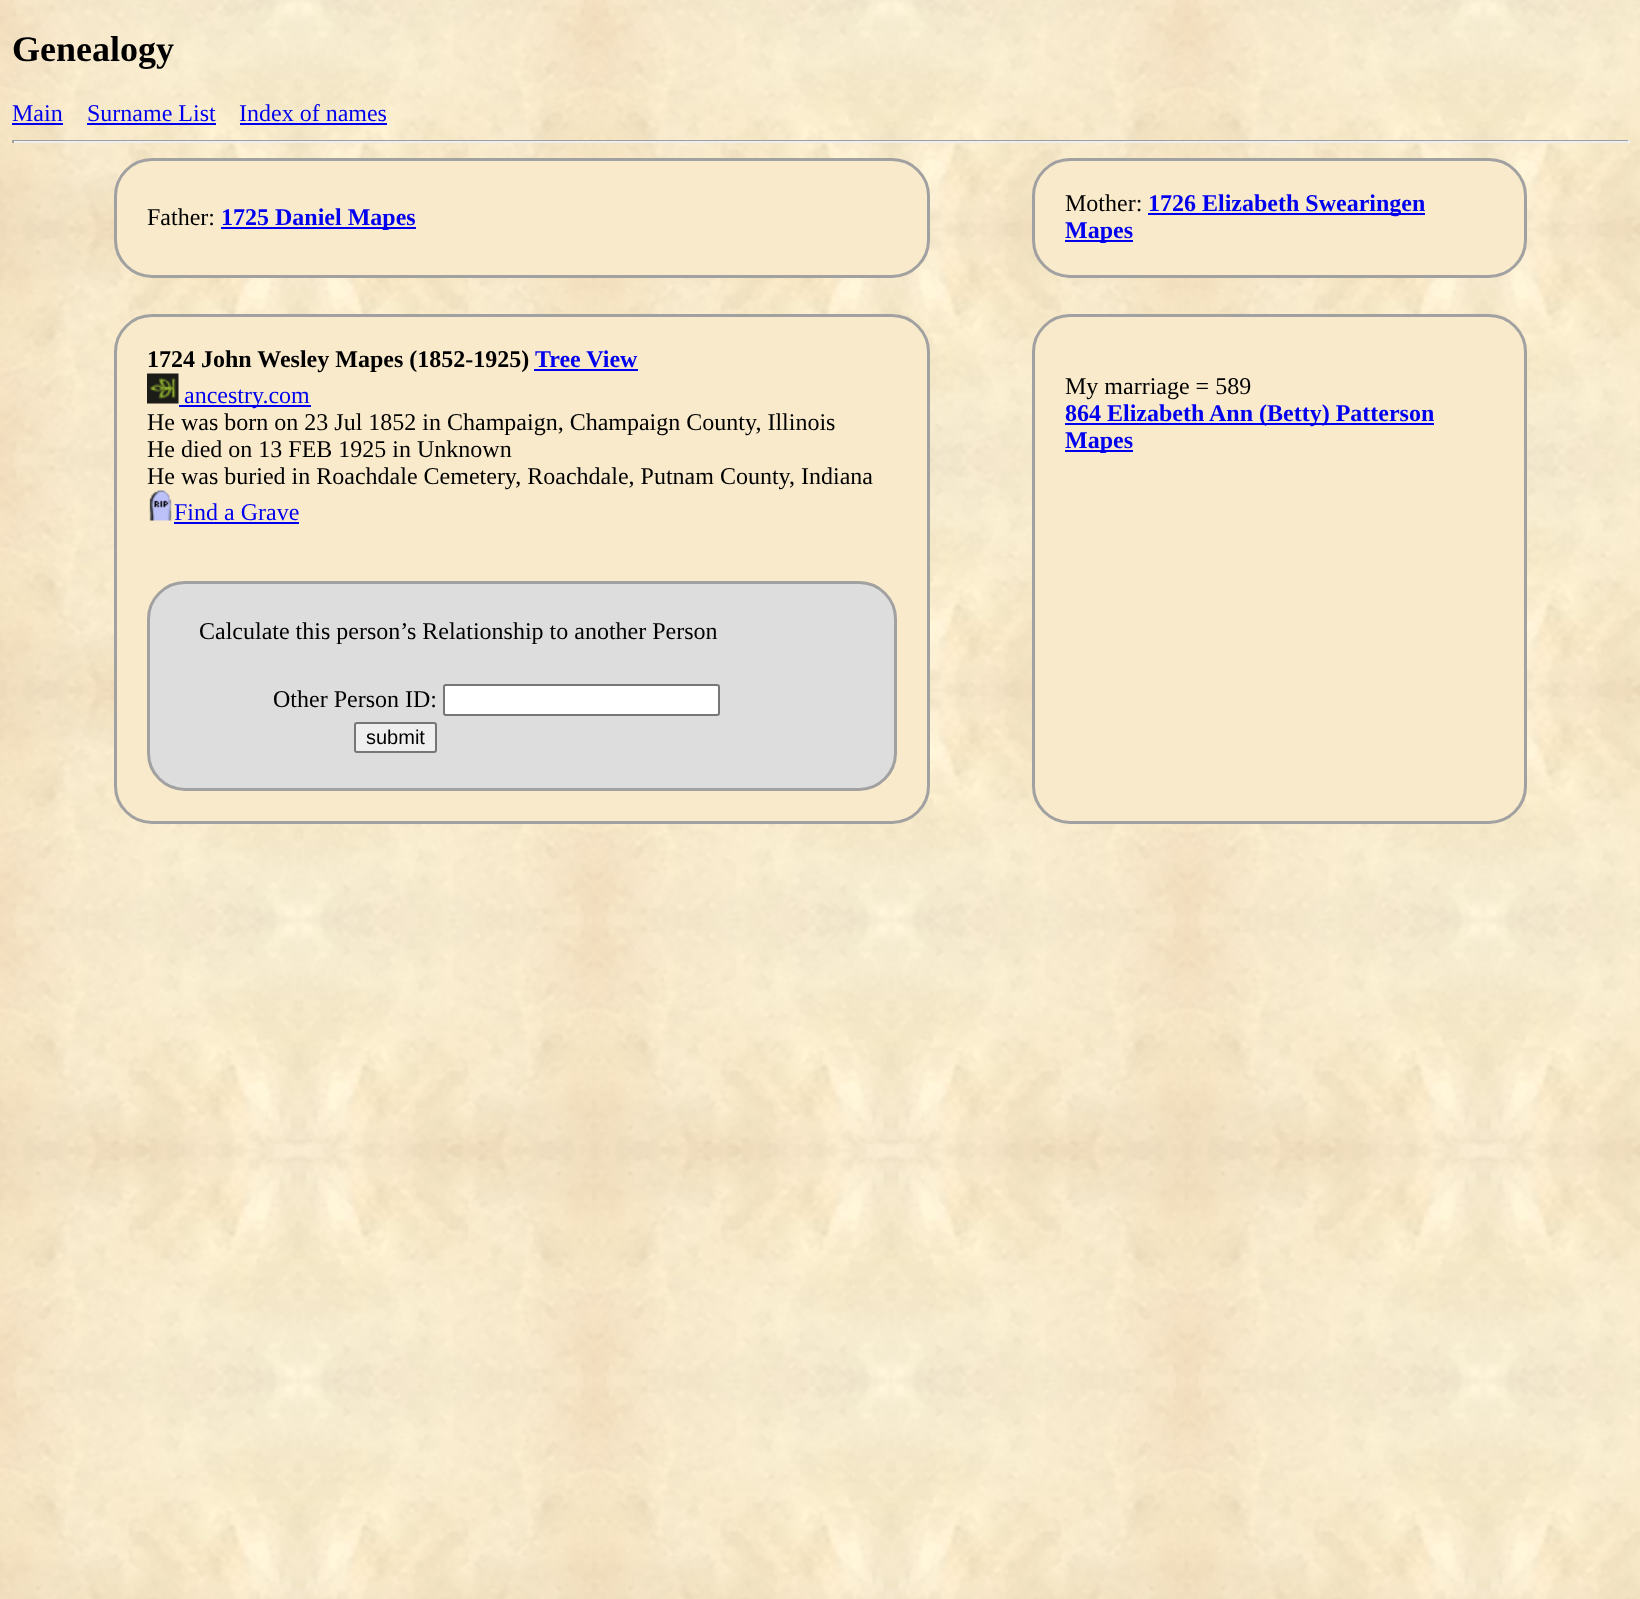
async function draw(canvas) {
  canvas.width = 1640
  canvas.height = 1599
  const ctx = canvas.getContext('2d')
  ctx.miterLimit = 4
  ctx.fontKerning = 'normal'
  async function loadImage(src) {
    const img = new Image()
    img.src = src
    await img.decode()
    return img
  }

  ctx.fillStyle = '#fff'
  ctx.fillRect(0, 0, 1640, 1599)
  ctx.drawImage(await loadImage('image0.png'), 0, 0, 1640, 1599)
  ctx.font = 'bold 36px Liberation Serif'
  ctx.fillStyle = '#000'
  ctx.fillText('Genealogy', 12, 61)
  ctx.font = '24px Liberation Serif'
  ctx.fillStyle = '#00e'
  ctx.fillText('Main', 12, 121)
  ctx.fillRect(12, 123, 51, 2)
  ctx.fillText('Surname List', 87, 121)
  ctx.fillRect(87, 123, 129, 2)
  ctx.fillText('Index of names', 239, 121)
  ctx.fillRect(240, 123, 147, 2)
  ctx.fillStyle = '#9f9f9f'
  ctx.fillRect(12, 140, 1617, 1)
  ctx.fillStyle = '#eee'
  ctx.fillRect(1628, 140, 2, 3)
  ctx.fillRect(12, 141, 1617, 2)
  ctx.fillStyle = '#9f9f9f'
  ctx.fillRect(12, 140, 2, 3)
  ctx.fillStyle = '#f9eacb'
  ctx.beginPath()
  ctx.roundRect(115.5, 159.5, 813, 117, 36.5)
  ctx.fill()
  ctx.strokeStyle = '#a1a1a1'
  ctx.lineWidth = 3
  ctx.stroke()
  ctx.fillStyle = '#000'
  ctx.fillText('Father:', 147, 225)
  ctx.fillStyle = '#00e'
  ctx.fillRect(221, 227, 195, 2)
  ctx.font = 'bold 24px Liberation Serif'
  ctx.fillText('1725 Daniel Mapes', 221, 225)
  ctx.fillStyle = '#f9eacb'
  ctx.beginPath()
  ctx.roundRect(1033.5, 159.5, 492, 117, 36.5)
  ctx.fill()
  ctx.stroke()
  ctx.font = '24px Liberation Serif'
  ctx.fillStyle = '#000'
  ctx.fillText('Mother:', 1065, 211)
  ctx.fillStyle = '#00e'
  ctx.fillRect(1148, 213, 277, 2)
  ctx.font = 'bold 24px Liberation Serif'
  ctx.fillText('1726 Elizabeth Swearingen', 1148, 211)
  ctx.fillRect(1065, 240, 68, 2)
  ctx.fillText('Mapes', 1065, 238)
  ctx.fillStyle = '#f9eacb'
  ctx.beginPath()
  ctx.roundRect(115.5, 315.5, 813, 507, 36.5)
  ctx.fill()
  ctx.stroke()
  ctx.fillStyle = '#000'
  ctx.fillText('1724 John Wesley Mapes (1852-1925)', 147, 367)
  ctx.fillStyle = '#00e'
  ctx.fillRect(534, 369, 104, 2)
  ctx.fillText('Tree View', 535, 367)
  ctx.drawImage(await loadImage('image1.png'), 147, 373, 32, 31)
  ctx.fillRect(179, 405, 132, 2)
  ctx.font = '24px Liberation Serif'
  ctx.fillText('ancestry.com', 184, 403)
  ctx.fillStyle = '#000'
  ctx.fillText('He was born on 23 Jul 1852 in Champaign, Champaign County, Illinois', 147, 430)
  ctx.fillText('He died on 13 FEB 1925 in Unknown', 147, 457)
  ctx.fillText('He was buried in Roachdale Cemetery, Roachdale, Putnam County, Indiana', 147, 484)
  ctx.drawImage(await loadImage('image2.png'), 149, 490, 23, 31)
  ctx.fillStyle = '#00e'
  ctx.fillText('Find a Grave', 174, 520)
  ctx.fillRect(174, 522, 125, 2)
  ctx.fillStyle = '#ddd'
  ctx.beginPath()
  ctx.roundRect(148.5, 582.5, 747, 207, 36.5)
  ctx.fill()
  ctx.stroke()
  ctx.fillStyle = '#000'
  ctx.fillText('Calculate this person’s Relationship to another Person', 199, 639)
  ctx.fillText('Other Person ID:', 273, 707)
  ctx.fillStyle = '#fff'
  ctx.beginPath()
  ctx.roundRect(444, 685, 275, 30, 2)
  ctx.fill()
  ctx.strokeStyle = '#767676'
  ctx.lineWidth = 2
  ctx.stroke()
  ctx.fillStyle = '#efefef'
  ctx.beginPath()
  ctx.roundRect(355, 723, 81, 29, 2)
  ctx.fill()
  ctx.stroke()
  ctx.font = '20px Liberation Sans'
  ctx.fillStyle = '#000'
  ctx.fillText('submit', 366, 744)
  ctx.fillStyle = '#f9eacb'
  ctx.beginPath()
  ctx.roundRect(1033.5, 315.5, 492, 507, 36.5)
  ctx.fill()
  ctx.strokeStyle = '#a1a1a1'
  ctx.lineWidth = 3
  ctx.stroke()
  ctx.font = '24px Liberation Serif'
  ctx.fillStyle = '#000'
  ctx.fillText('My marriage = 589', 1065, 394)
  ctx.fillStyle = '#00e'
  ctx.fillRect(1065, 423, 369, 2)
  ctx.font = 'bold 24px Liberation Serif'
  ctx.fillText('864 Elizabeth Ann (Betty) Patterson', 1065, 421)
  ctx.fillRect(1065, 450, 68, 2)
  ctx.fillText('Mapes', 1065, 448)
}

draw(document.querySelector('canvas'))
